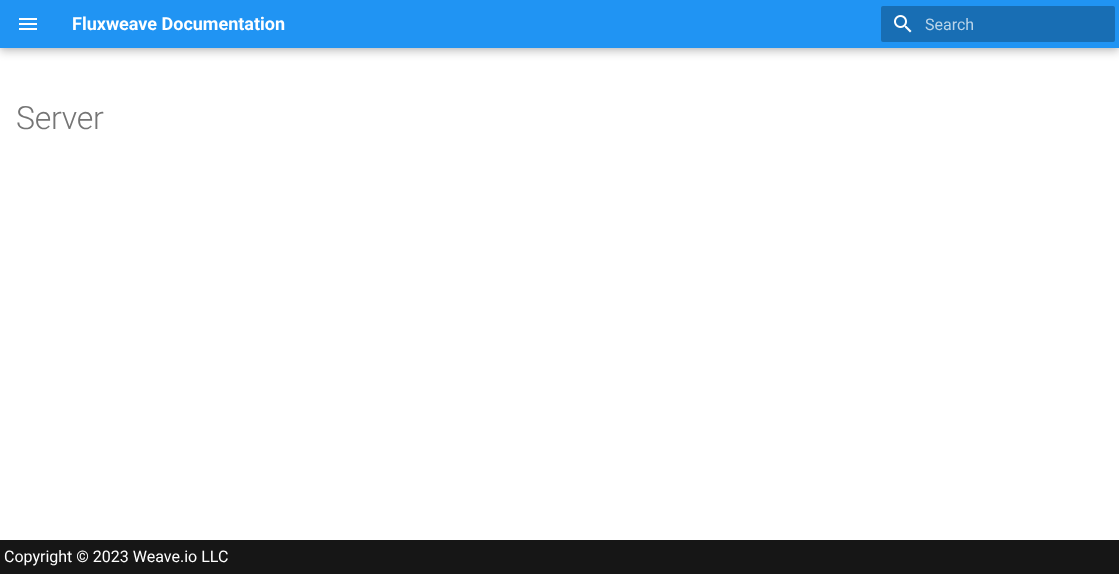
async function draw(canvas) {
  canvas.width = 1119
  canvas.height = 574
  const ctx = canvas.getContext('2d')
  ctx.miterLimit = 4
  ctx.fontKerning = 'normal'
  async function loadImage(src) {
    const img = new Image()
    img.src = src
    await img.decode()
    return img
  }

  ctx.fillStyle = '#fff'
  ctx.fillRect(0, 0, 1119, 574)
  ctx.fillStyle = '#00000033'
  ctx.filter = 'blur(4px)'
  ctx.beginPath()
  ctx.rect(0, 4, 1119, 48)
  ctx.fill()
  ctx.filter = 'none'
  ctx.fillStyle = '#0000001a'
  ctx.filter = 'blur(2px)'
  ctx.beginPath()
  ctx.rect(0, 0, 1119, 48)
  ctx.fill()
  ctx.filter = 'none'
  ctx.fillStyle = '#2094f3'
  ctx.fillRect(0, 0, 1119, 48)
  ctx.drawImage(await loadImage('image0.png'), 19, 18, 18, 12)
  ctx.font = 'bold 18px Roboto'
  ctx.fillStyle = '#fff'
  ctx.fillText('Fluxweave Documentation', 72, 30)
  ctx.fillStyle = '#186eb4'
  ctx.beginPath()
  ctx.roundRect(881, 6, 234, 36, 2)
  ctx.fill()
  ctx.drawImage(await loadImage('image1.png'), 894, 15, 18, 18)
  ctx.font = '16px Roboto'
  ctx.fillStyle = '#bad4e9'
  ctx.fillText('Search', 925, 30)
  ctx.letterSpacing = '-0.25px'
  ctx.font = '300 32px Roboto'
  ctx.fillStyle = '#757575'
  ctx.fillText('Server', 16, 129)
  ctx.fillStyle = '#161616'
  ctx.fillRect(0, 540, 1119, 34)
  ctx.letterSpacing = '0px'
  ctx.font = '16px Roboto'
  ctx.fillStyle = '#fff'
  ctx.fillText('Copyright © 2023 Weave.io LLC', 4, 562)
}

draw(document.querySelector('canvas'))
